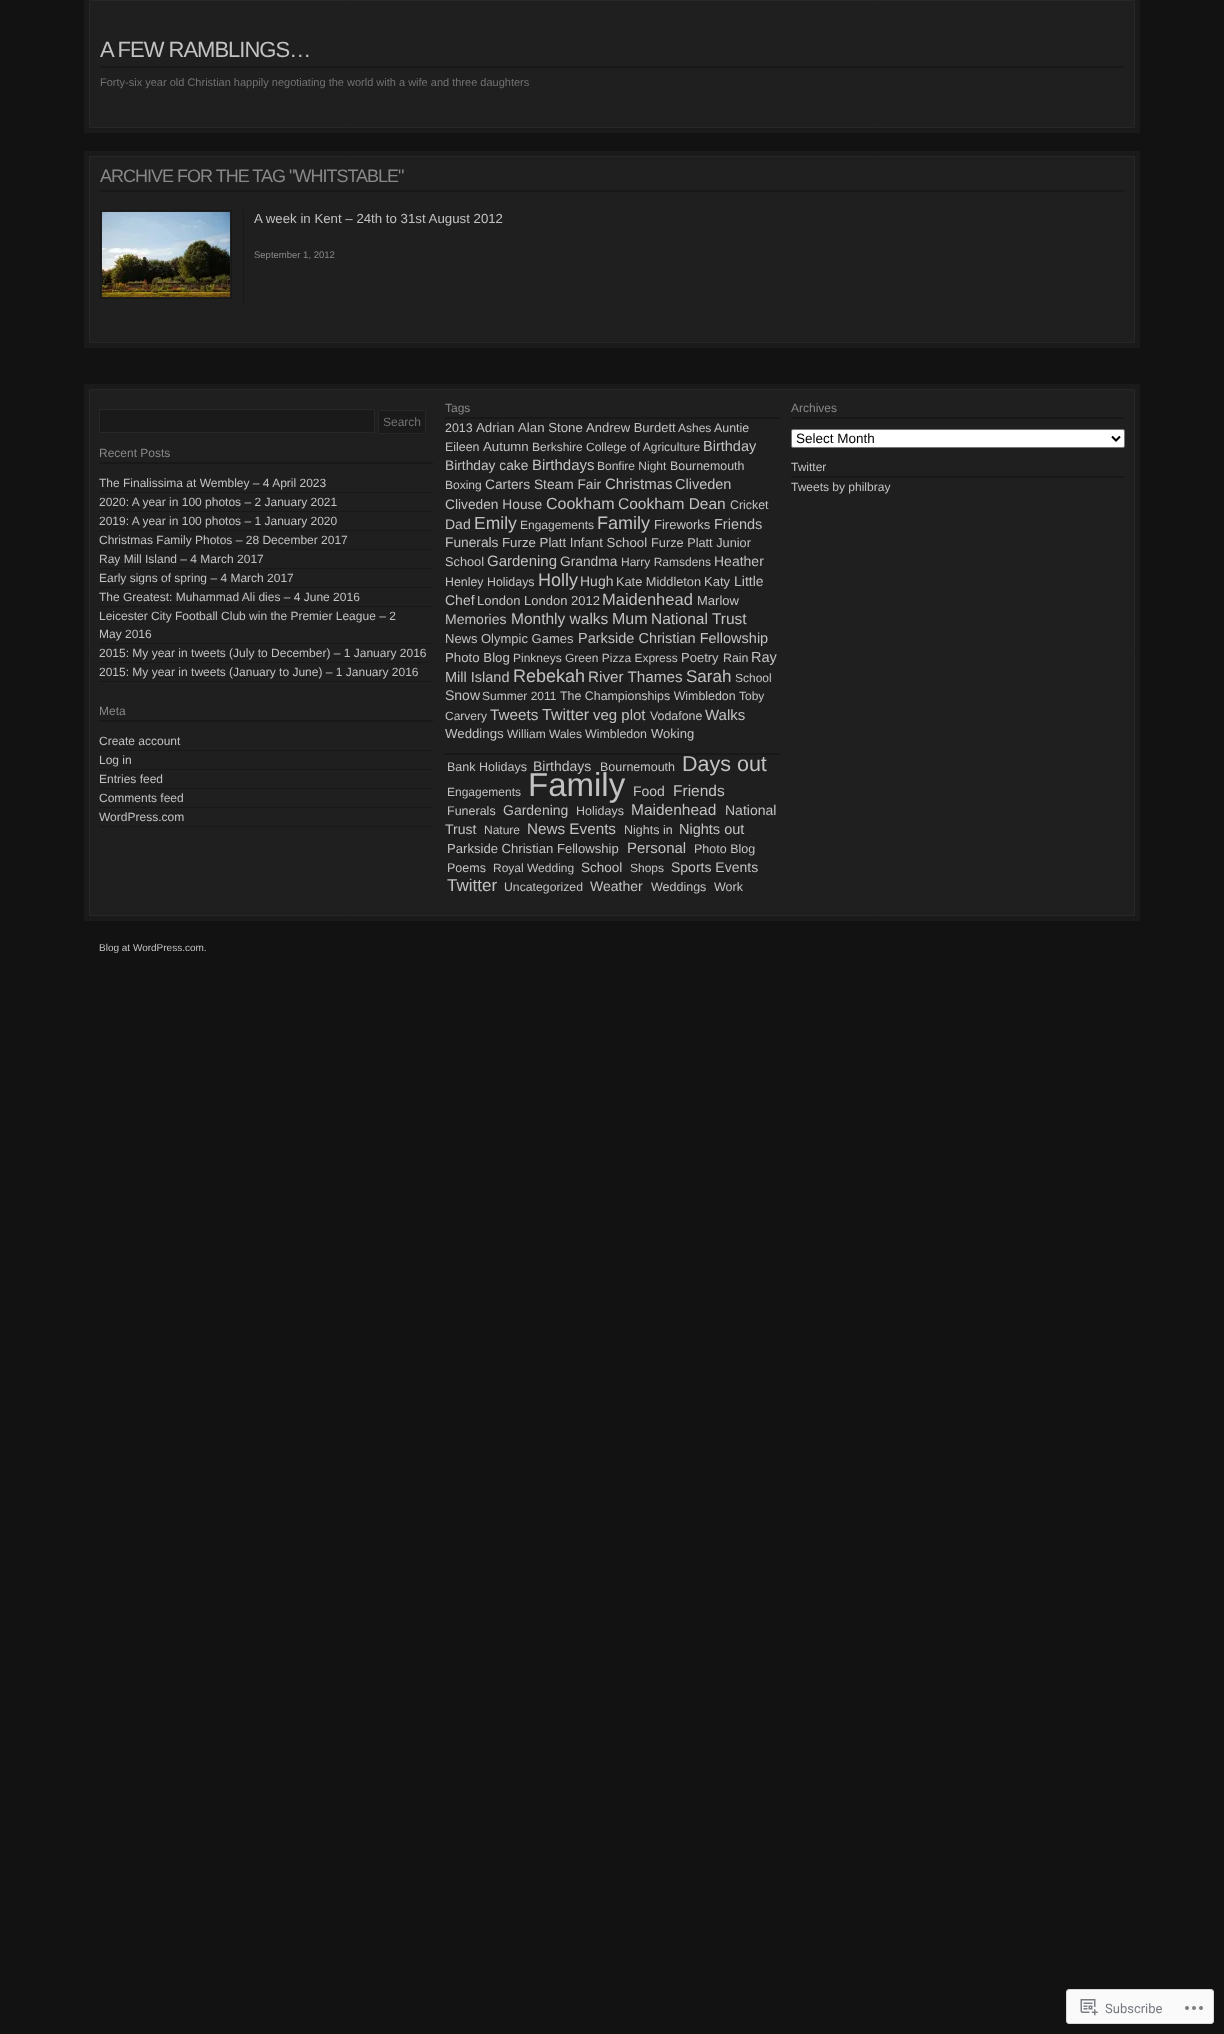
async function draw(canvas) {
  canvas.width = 1224
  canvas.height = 2034
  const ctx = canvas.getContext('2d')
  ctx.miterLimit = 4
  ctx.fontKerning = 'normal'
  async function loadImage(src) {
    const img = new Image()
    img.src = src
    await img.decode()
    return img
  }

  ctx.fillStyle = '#121212'
  ctx.fillRect(0, 0, 1224, 2034)
  ctx.fillStyle = '#1a1a1a'
  ctx.fillRect(84, 0, 1056, 133)
  ctx.fillStyle = '#1f1f1f'
  ctx.beginPath()
  ctx.rect(89.5, 0.5, 1045, 127)
  ctx.fill()
  ctx.strokeStyle = '#272727'
  ctx.stroke()
  ctx.fillStyle = '#181818'
  ctx.fillRect(100, 66, 1024, 2)
  ctx.letterSpacing = '-1px'
  ctx.font = '22px Liberation Sans'
  ctx.fillStyle = '#c2c2c2'
  ctx.fillText('A FEW RAMBLINGS…', 100, 57)
  ctx.letterSpacing = '0px'
  ctx.font = '11px Liberation Sans'
  ctx.fillStyle = '#727272'
  ctx.fillText('Forty-six year old Christian happily negotiating the world with a wife and three daughters', 100, 86)
  ctx.fillStyle = '#1a1a1a'
  ctx.fillRect(84, 151, 1056, 197)
  ctx.fillStyle = '#1f1f1f'
  ctx.beginPath()
  ctx.rect(89.5, 156.5, 1045, 186)
  ctx.fill()
  ctx.stroke()
  ctx.fillStyle = '#181818'
  ctx.fillRect(100, 190, 1024, 2)
  ctx.letterSpacing = '-1px'
  ctx.font = '18px Liberation Sans'
  ctx.fillStyle = '#888'
  ctx.fillText('ARCHIVE FOR THE TAG "WHITSTABLE"', 100, 182)
  ctx.fillStyle = '#181818'
  ctx.fillRect(243, 210, 1, 94)
  ctx.strokeStyle = '#181818'
  ctx.strokeRect(100.5, 210.5, 131, 88)
  ctx.drawImage(await loadImage('image0.png'), 102, 212, 128, 85)
  ctx.letterSpacing = '0px'
  ctx.font = '13.25px Liberation Sans'
  ctx.fillStyle = '#c2c2c2'
  ctx.fillText('A week in Kent – 24th to 31st August 2012', 254, 223)
  ctx.font = '9.5px Liberation Sans'
  ctx.fillStyle = '#888'
  ctx.fillText('September 1, 2012', 254, 258)
  ctx.fillStyle = '#1a1a1a'
  ctx.fillRect(84, 384, 1056, 537)
  ctx.fillStyle = '#1f1f1f'
  ctx.beginPath()
  ctx.rect(89.5, 389.5, 1045, 526)
  ctx.fill()
  ctx.strokeStyle = '#272727'
  ctx.stroke()
  ctx.fillStyle = '#1a1a1a'
  ctx.beginPath()
  ctx.rect(99.5, 409.5, 275, 23)
  ctx.fill()
  ctx.stroke()
  ctx.beginPath()
  ctx.rect(378.5, 410.5, 47, 23)
  ctx.fill()
  ctx.stroke()
  ctx.font = '12px Liberation Sans'
  ctx.fillStyle = '#727272'
  ctx.fillText('Search', 383, 426)
  ctx.fillStyle = '#181818'
  ctx.fillRect(99, 462, 334, 2)
  ctx.fillStyle = '#888'
  ctx.fillText('Recent Posts', 99, 457)
  ctx.fillStyle = '#181818'
  ctx.fillRect(99, 492, 334, 1)
  ctx.fillStyle = '#c2c2c2'
  ctx.fillText('The Finalissima at Wembley – 4 April 2023', 99, 487)
  ctx.fillStyle = '#181818'
  ctx.fillRect(99, 511, 334, 1)
  ctx.fillStyle = '#c2c2c2'
  ctx.fillText('2020: A year in 100 photos – 2 January 2021', 99, 506)
  ctx.fillStyle = '#181818'
  ctx.fillRect(99, 530, 334, 1)
  ctx.fillStyle = '#c2c2c2'
  ctx.fillText('2019: A year in 100 photos – 1 January 2020', 99, 525)
  ctx.fillStyle = '#181818'
  ctx.fillRect(99, 549, 334, 1)
  ctx.fillStyle = '#c2c2c2'
  ctx.fillText('Christmas Family Photos – 28 December 2017', 99, 544)
  ctx.fillStyle = '#181818'
  ctx.fillRect(99, 568, 334, 1)
  ctx.fillStyle = '#c2c2c2'
  ctx.fillText('Ray Mill Island – 4 March 2017', 99, 563)
  ctx.fillStyle = '#181818'
  ctx.fillRect(99, 587, 334, 1)
  ctx.fillStyle = '#c2c2c2'
  ctx.fillText('Early signs of spring – 4 March 2017', 99, 582)
  ctx.fillStyle = '#181818'
  ctx.fillRect(99, 606, 334, 1)
  ctx.fillStyle = '#c2c2c2'
  ctx.fillText('The Greatest: Muhammad Ali dies – 4 June 2016', 99, 601)
  ctx.fillStyle = '#181818'
  ctx.fillRect(99, 643, 334, 1)
  ctx.fillStyle = '#c2c2c2'
  ctx.fillText('Leicester City Football Club win the Premier League – 2', 99, 620)
  ctx.fillText('May 2016', 99, 638)
  ctx.fillStyle = '#181818'
  ctx.fillRect(99, 662, 334, 1)
  ctx.fillStyle = '#c2c2c2'
  ctx.fillText('2015: My year in tweets (July to December) – 1 January 2016', 99, 657)
  ctx.fillStyle = '#181818'
  ctx.fillRect(99, 681, 334, 1)
  ctx.fillStyle = '#c2c2c2'
  ctx.fillText('2015: My year in tweets (January to June) – 1 January 2016', 99, 676)
  ctx.fillStyle = '#181818'
  ctx.fillRect(99, 720, 334, 2)
  ctx.fillStyle = '#888'
  ctx.fillText('Meta', 99, 715)
  ctx.fillStyle = '#181818'
  ctx.fillRect(99, 750, 334, 1)
  ctx.fillStyle = '#c2c2c2'
  ctx.fillText('Create account', 99, 745)
  ctx.fillStyle = '#181818'
  ctx.fillRect(99, 769, 334, 1)
  ctx.fillStyle = '#c2c2c2'
  ctx.fillText('Log in', 99, 764)
  ctx.fillStyle = '#181818'
  ctx.fillRect(99, 788, 334, 1)
  ctx.fillStyle = '#c2c2c2'
  ctx.fillText('Entries feed', 99, 783)
  ctx.fillStyle = '#181818'
  ctx.fillRect(99, 807, 334, 1)
  ctx.fillStyle = '#c2c2c2'
  ctx.fillText('Comments feed', 99, 802)
  ctx.fillStyle = '#181818'
  ctx.fillRect(99, 826, 334, 1)
  ctx.fillStyle = '#c2c2c2'
  ctx.fillText('WordPress.com', 99, 821)
  ctx.fillStyle = '#181818'
  ctx.fillRect(445, 417, 334, 2)
  ctx.fillStyle = '#888'
  ctx.fillText('Tags', 445, 412)
  ctx.font = '12.4px Liberation Sans'
  ctx.fillStyle = '#c2c2c2'
  ctx.fillText('2013', 445, 432)
  ctx.font = '13.25px Liberation Sans'
  ctx.fillText('Adrian', 476, 432)
  ctx.fillText('Alan Stone', 518, 432)
  ctx.font = '13px Liberation Sans'
  ctx.fillText('Andrew Burdett', 586, 432)
  ctx.font = '12px Liberation Sans'
  ctx.fillText('Ashes', 678, 432)
  ctx.font = '12.4px Liberation Sans'
  ctx.fillText('Auntie', 714, 432)
  ctx.fillText('Eileen', 445, 451)
  ctx.font = '13.25px Liberation Sans'
  ctx.fillText('Autumn', 483, 451)
  ctx.font = '12px Liberation Sans'
  ctx.fillText('Berkshire College of Agriculture', 532, 451)
  ctx.font = '14.5px Liberation Sans'
  ctx.fillText('Birthday', 703, 451)
  ctx.font = '13.75px Liberation Sans'
  ctx.fillText('Birthday cake', 445, 470)
  ctx.font = '15px Liberation Sans'
  ctx.fillText('Birthdays', 532, 470)
  ctx.font = '12px Liberation Sans'
  ctx.fillText('Bonfire Night', 597, 470)
  ctx.font = '12.4px Liberation Sans'
  ctx.fillText('Bournemouth', 670, 470)
  ctx.font = '12px Liberation Sans'
  ctx.fillText('Boxing', 445, 489)
  ctx.font = '13.75px Liberation Sans'
  ctx.fillText('Carters Steam Fair', 485, 489)
  ctx.font = '15px Liberation Sans'
  ctx.fillText('Christmas', 605, 489)
  ctx.font = '14.5px Liberation Sans'
  ctx.fillText('Cliveden', 675, 489)
  ctx.font = '13.75px Liberation Sans'
  ctx.fillText('Cliveden House', 445, 509)
  ctx.font = '16px Liberation Sans'
  ctx.fillText('Cookham', 546, 509)
  ctx.font = '15.5px Liberation Sans'
  ctx.fillText('Cookham Dean', 618, 509)
  ctx.font = '12.4px Liberation Sans'
  ctx.fillText('Cricket', 730, 509)
  ctx.font = '14px Liberation Sans'
  ctx.fillText('Dad', 445, 529)
  ctx.font = '17.5px Liberation Sans'
  ctx.fillText('Emily', 474, 529)
  ctx.font = '12px Liberation Sans'
  ctx.fillText('Engagements', 520, 529)
  ctx.font = '18px Liberation Sans'
  ctx.fillText('Family', 597, 529)
  ctx.font = '13px Liberation Sans'
  ctx.fillText('Fireworks', 654, 529)
  ctx.font = '14.5px Liberation Sans'
  ctx.fillText('Friends', 714, 529)
  ctx.font = '13.75px Liberation Sans'
  ctx.fillText('Funerals', 445, 547)
  ctx.font = '13.25px Liberation Sans'
  ctx.fillText('Furze Platt Infant School', 502, 547)
  ctx.font = '12.75px Liberation Sans'
  ctx.fillText('Furze Platt Junior', 651, 547)
  ctx.fillText('School', 445, 566)
  ctx.font = '15px Liberation Sans'
  ctx.fillText('Gardening', 487, 566)
  ctx.font = '13.75px Liberation Sans'
  ctx.fillText('Grandma', 560, 566)
  ctx.font = '12px Liberation Sans'
  ctx.fillText('Harry Ramsdens', 621, 566)
  ctx.font = '14px Liberation Sans'
  ctx.fillText('Heather', 714, 566)
  ctx.font = '12.4px Liberation Sans'
  ctx.fillText('Henley Holidays', 445, 586)
  ctx.font = '18px Liberation Sans'
  ctx.fillText('Holly', 538, 586)
  ctx.font = '14px Liberation Sans'
  ctx.fillText('Hugh', 580, 586)
  ctx.font = '12.75px Liberation Sans'
  ctx.fillText('Kate Middleton', 616, 586)
  ctx.font = '13px Liberation Sans'
  ctx.fillText('Katy', 704, 586)
  ctx.font = '14px Liberation Sans'
  ctx.fillText('Little', 734, 586)
  ctx.fillText('Chef', 445, 605)
  ctx.font = '13px Liberation Sans'
  ctx.fillText('London', 477, 605)
  ctx.fillText('London 2012', 524, 605)
  ctx.font = '16.5px Liberation Sans'
  ctx.fillText('Maidenhead', 602, 605)
  ctx.font = '13px Liberation Sans'
  ctx.fillText('Marlow', 697, 605)
  ctx.font = '14px Liberation Sans'
  ctx.fillText('Memories', 445, 624)
  ctx.font = '15.5px Liberation Sans'
  ctx.fillText('Monthly walks', 511, 624)
  ctx.font = '16px Liberation Sans'
  ctx.fillText('Mum', 612, 624)
  ctx.font = '15.5px Liberation Sans'
  ctx.fillText('National Trust', 651, 624)
  ctx.font = '13px Liberation Sans'
  ctx.fillText('News', 445, 643)
  ctx.fillText('Olympic Games', 481, 643)
  ctx.font = '14.5px Liberation Sans'
  ctx.fillText('Parkside Christian Fellowship', 578, 643)
  ctx.font = '13.25px Liberation Sans'
  ctx.fillText('Photo Blog', 445, 662)
  ctx.font = '12px Liberation Sans'
  ctx.fillText('Pinkneys Green Pizza Express', 513, 662)
  ctx.font = '13px Liberation Sans'
  ctx.fillText('Poetry', 681, 662)
  ctx.font = '12.4px Liberation Sans'
  ctx.fillText('Rain', 723, 662)
  ctx.font = '14.5px Liberation Sans'
  ctx.fillText('Ray', 751, 662)
  ctx.fillText('Mill Island', 445, 682)
  ctx.font = '18px Liberation Sans'
  ctx.fillText('Rebekah', 513, 682)
  ctx.font = '15.25px Liberation Sans'
  ctx.fillText('River Thames', 588, 682)
  ctx.font = '17px Liberation Sans'
  ctx.fillText('Sarah', 686, 682)
  ctx.font = '12px Liberation Sans'
  ctx.fillText('School', 735, 682)
  ctx.font = '14px Liberation Sans'
  ctx.fillText('Snow', 445, 700)
  ctx.font = '12px Liberation Sans'
  ctx.fillText('Summer 2011', 482, 700)
  ctx.font = '12.4px Liberation Sans'
  ctx.fillText('The Championships Wimbledon', 560, 700)
  ctx.font = '12px Liberation Sans'
  ctx.fillText('Toby', 739, 700)
  ctx.fillText('Carvery', 445, 720)
  ctx.font = '15.25px Liberation Sans'
  ctx.fillText('Tweets', 490, 720)
  ctx.font = '16px Liberation Sans'
  ctx.fillText('Twitter', 542, 720)
  ctx.font = '15px Liberation Sans'
  ctx.fillText('veg plot', 593, 720)
  ctx.font = '12.4px Liberation Sans'
  ctx.fillText('Vodafone', 650, 720)
  ctx.font = '15px Liberation Sans'
  ctx.fillText('Walks', 705, 720)
  ctx.font = '13.25px Liberation Sans'
  ctx.fillText('Weddings', 445, 738)
  ctx.font = '12px Liberation Sans'
  ctx.fillText('William Wales', 507, 738)
  ctx.font = '12.4px Liberation Sans'
  ctx.fillText('Wimbledon', 585, 738)
  ctx.font = '13px Liberation Sans'
  ctx.fillText('Woking', 651, 738)
  ctx.fillStyle = '#181818'
  ctx.fillRect(445, 753, 334, 2)
  ctx.font = '12.5px Liberation Sans'
  ctx.fillStyle = '#c2c2c2'
  ctx.fillText('Bank Holidays', 447, 771)
  ctx.font = '14px Liberation Sans'
  ctx.fillText('Birthdays', 533, 771)
  ctx.font = '12.5px Liberation Sans'
  ctx.fillText('Bournemouth', 600, 771)
  ctx.font = '21.5px Liberation Sans'
  ctx.fillText('Days out', 682, 771)
  ctx.font = '12px Liberation Sans'
  ctx.fillText('Engagements', 447, 796)
  ctx.font = '33px Liberation Sans'
  ctx.fillText('Family', 528, 796)
  ctx.font = '14px Liberation Sans'
  ctx.fillText('Food', 633, 796)
  ctx.font = '15.5px Liberation Sans'
  ctx.fillText('Friends', 673, 796)
  ctx.font = '12.5px Liberation Sans'
  ctx.fillText('Funerals', 447, 815)
  ctx.font = '14px Liberation Sans'
  ctx.fillText('Gardening', 503, 815)
  ctx.font = '12.5px Liberation Sans'
  ctx.fillText('Holidays', 576, 815)
  ctx.font = '15.5px Liberation Sans'
  ctx.fillText('Maidenhead', 631, 815)
  ctx.font = '14px Liberation Sans'
  ctx.fillText('National', 725, 815)
  ctx.fillText('Trust', 445, 834)
  ctx.font = '12px Liberation Sans'
  ctx.fillText('Nature', 484, 834)
  ctx.font = '15.25px Liberation Sans'
  ctx.fillText('News Events', 527, 834)
  ctx.font = '12.5px Liberation Sans'
  ctx.fillText('Nights in', 624, 834)
  ctx.font = '14.5px Liberation Sans'
  ctx.fillText('Nights out', 679, 834)
  ctx.font = '13.1px Liberation Sans'
  ctx.fillText('Parkside Christian Fellowship', 447, 853)
  ctx.font = '15px Liberation Sans'
  ctx.fillText('Personal', 627, 853)
  ctx.font = '12.5px Liberation Sans'
  ctx.fillText('Photo Blog', 694, 853)
  ctx.fillText('Poems', 447, 872)
  ctx.font = '12px Liberation Sans'
  ctx.fillText('Royal Wedding', 493, 872)
  ctx.font = '13.5px Liberation Sans'
  ctx.fillText('School', 581, 872)
  ctx.font = '12px Liberation Sans'
  ctx.fillText('Shops', 630, 872)
  ctx.font = '14px Liberation Sans'
  ctx.fillText('Sports Events', 671, 872)
  ctx.font = '17px Liberation Sans'
  ctx.fillText('Twitter', 447, 891)
  ctx.font = '12.25px Liberation Sans'
  ctx.fillText('Uncategorized', 504, 891)
  ctx.font = '14px Liberation Sans'
  ctx.fillText('Weather', 590, 891)
  ctx.font = '12.5px Liberation Sans'
  ctx.fillText('Weddings', 651, 891)
  ctx.fillText('Work', 714, 891)
  ctx.fillStyle = '#181818'
  ctx.fillRect(791, 417, 334, 2)
  ctx.font = '12px Liberation Sans'
  ctx.fillStyle = '#888'
  ctx.fillText('Archives', 791, 412)
  ctx.fillStyle = '#fff'
  ctx.beginPath()
  ctx.roundRect(791.5, 429.5, 333, 18, 1.5)
  ctx.fill()
  ctx.strokeStyle = '#767676'
  ctx.stroke()
  ctx.beginPath()
  ctx.moveTo(1112, 436.5)
  ctx.lineTo(1116, 440.5)
  ctx.lineTo(1120, 436.5)
  ctx.strokeStyle = '#000'
  ctx.lineWidth = 2
  ctx.stroke()
  ctx.font = '13.5px Liberation Sans'
  ctx.fillStyle = '#000'
  ctx.fillText('Select Month', 796, 443)
  ctx.fillStyle = '#181818'
  ctx.fillRect(791, 476, 334, 2)
  ctx.font = '12px Liberation Sans'
  ctx.fillStyle = '#c2c2c2'
  ctx.fillText('Twitter', 791, 471)
  ctx.fillText('Tweets by philbray', 791, 491)
  ctx.font = '10px Liberation Sans'
  ctx.fillText('Blog at WordPress.com.', 99, 951)
  ctx.fillStyle = '#fafafa'
  ctx.beginPath()
  ctx.roundRect(1066.5, 1989.5, 147, 34, 2.5)
  ctx.fill()
  ctx.strokeStyle = '#d8d8da'
  ctx.lineWidth = 1
  ctx.stroke()
  ctx.drawImage(await loadImage('image1.png'), 1080, 1999, 18, 17)
  ctx.font = '13px Roboto'
  ctx.fillStyle = '#767a80'
  ctx.fillText('Subscribe', 1105, 2013)
  ctx.drawImage(await loadImage('image2.png'), 1185, 2006, 18, 4)
}

draw(document.querySelector('canvas'))
